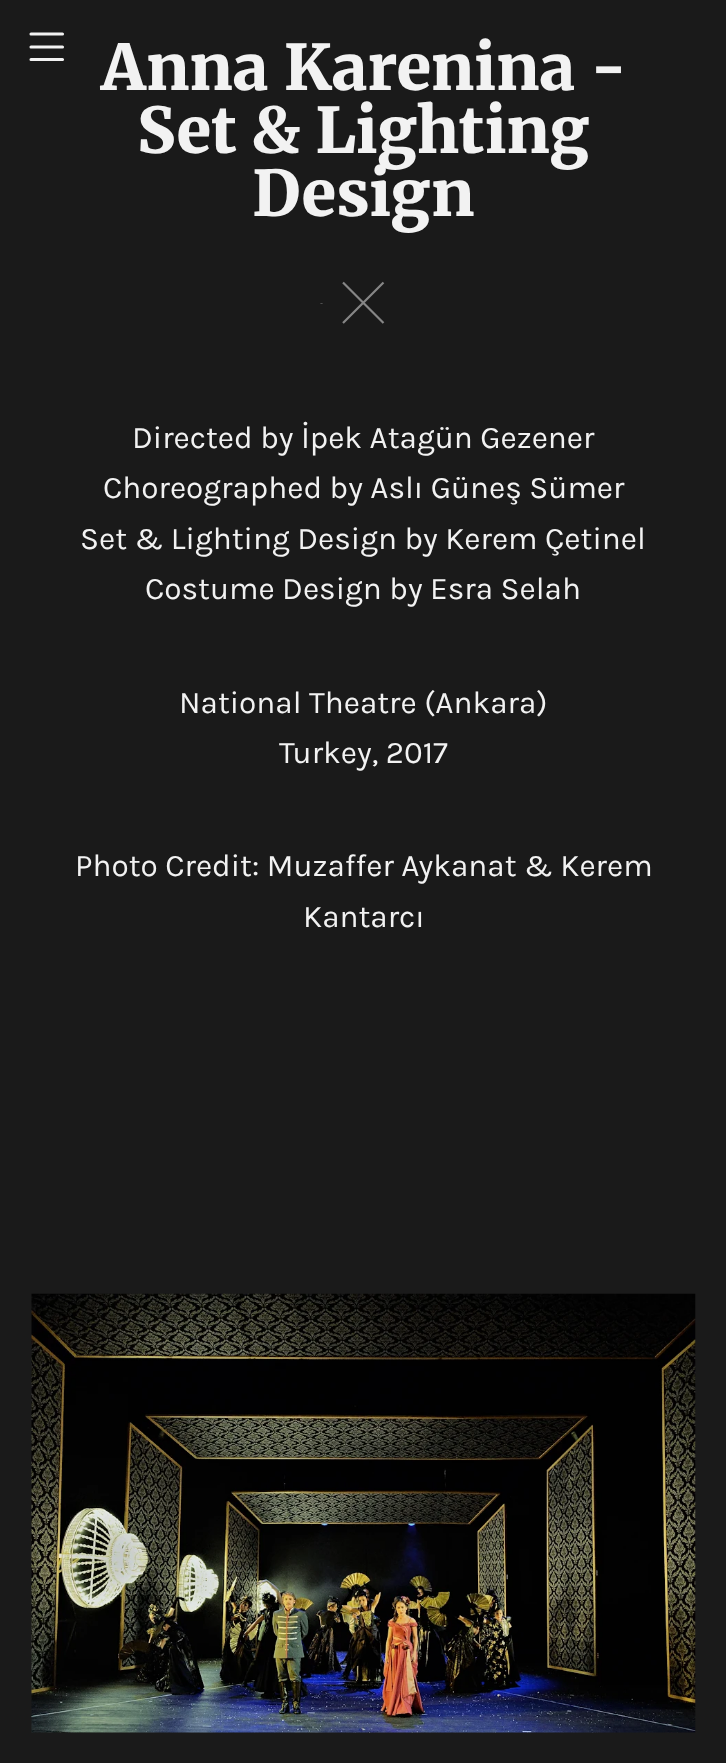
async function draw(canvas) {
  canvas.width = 726
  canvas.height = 1763
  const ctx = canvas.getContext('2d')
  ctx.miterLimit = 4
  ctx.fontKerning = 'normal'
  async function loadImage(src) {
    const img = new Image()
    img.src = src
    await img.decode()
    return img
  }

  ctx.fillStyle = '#1a1a1a'
  ctx.fillRect(0, 0, 726, 1763)
  ctx.beginPath()
  ctx.moveTo(31, 34)
  ctx.lineTo(62.5, 34)
  ctx.moveTo(31, 47)
  ctx.lineTo(62.5, 47)
  ctx.moveTo(31, 59.5)
  ctx.lineTo(62.5, 59.5)
  ctx.strokeStyle = '#f2f2f2'
  ctx.lineWidth = 3.1
  ctx.lineCap = 'round'
  ctx.stroke()
  ctx.font = '300 63px Merriweather'
  ctx.fillStyle = '#f2f2f2'
  ctx.fillText('Anna Karenina -', 101, 90)
  ctx.fillText('Set & Lighting', 137, 153)
  ctx.fillText('Design', 252, 216)
  ctx.beginPath()
  ctx.moveTo(321.5, 303.5)
  ctx.lineTo(321.5, 303)
  ctx.strokeStyle = '#868686'
  ctx.lineWidth = 2.2
  ctx.lineCap = 'butt'
  ctx.stroke()
  ctx.beginPath()
  ctx.moveTo(383.5, 323)
  ctx.lineTo(343, 282.5)
  ctx.moveTo(383.5, 282.5)
  ctx.lineTo(343, 323)
  ctx.stroke()
  ctx.font = '31.5px Karla'
  ctx.fillText('Directed by İpek Atagün Gezener', 132, 448)
  ctx.fillText('Choreographed by Aslı Güneş Sümer', 103, 498)
  ctx.fillText('Set & Lighting Design by Kerem Çetinel', 80, 549)
  ctx.fillText('Costume Design by Esra Selah', 145, 599)
  ctx.fillText('National Theatre (Ankara)', 179, 713)
  ctx.fillText('Turkey, 2017', 279, 763)
  ctx.fillText('Photo Credit: Muzaffer Aykanat & Kerem', 75, 876)
  ctx.fillText('Kantarcı', 303, 927)
  ctx.drawImage(await loadImage('image0.png'), 31, 1293, 665, 440)
}

draw(document.querySelector('canvas'))
